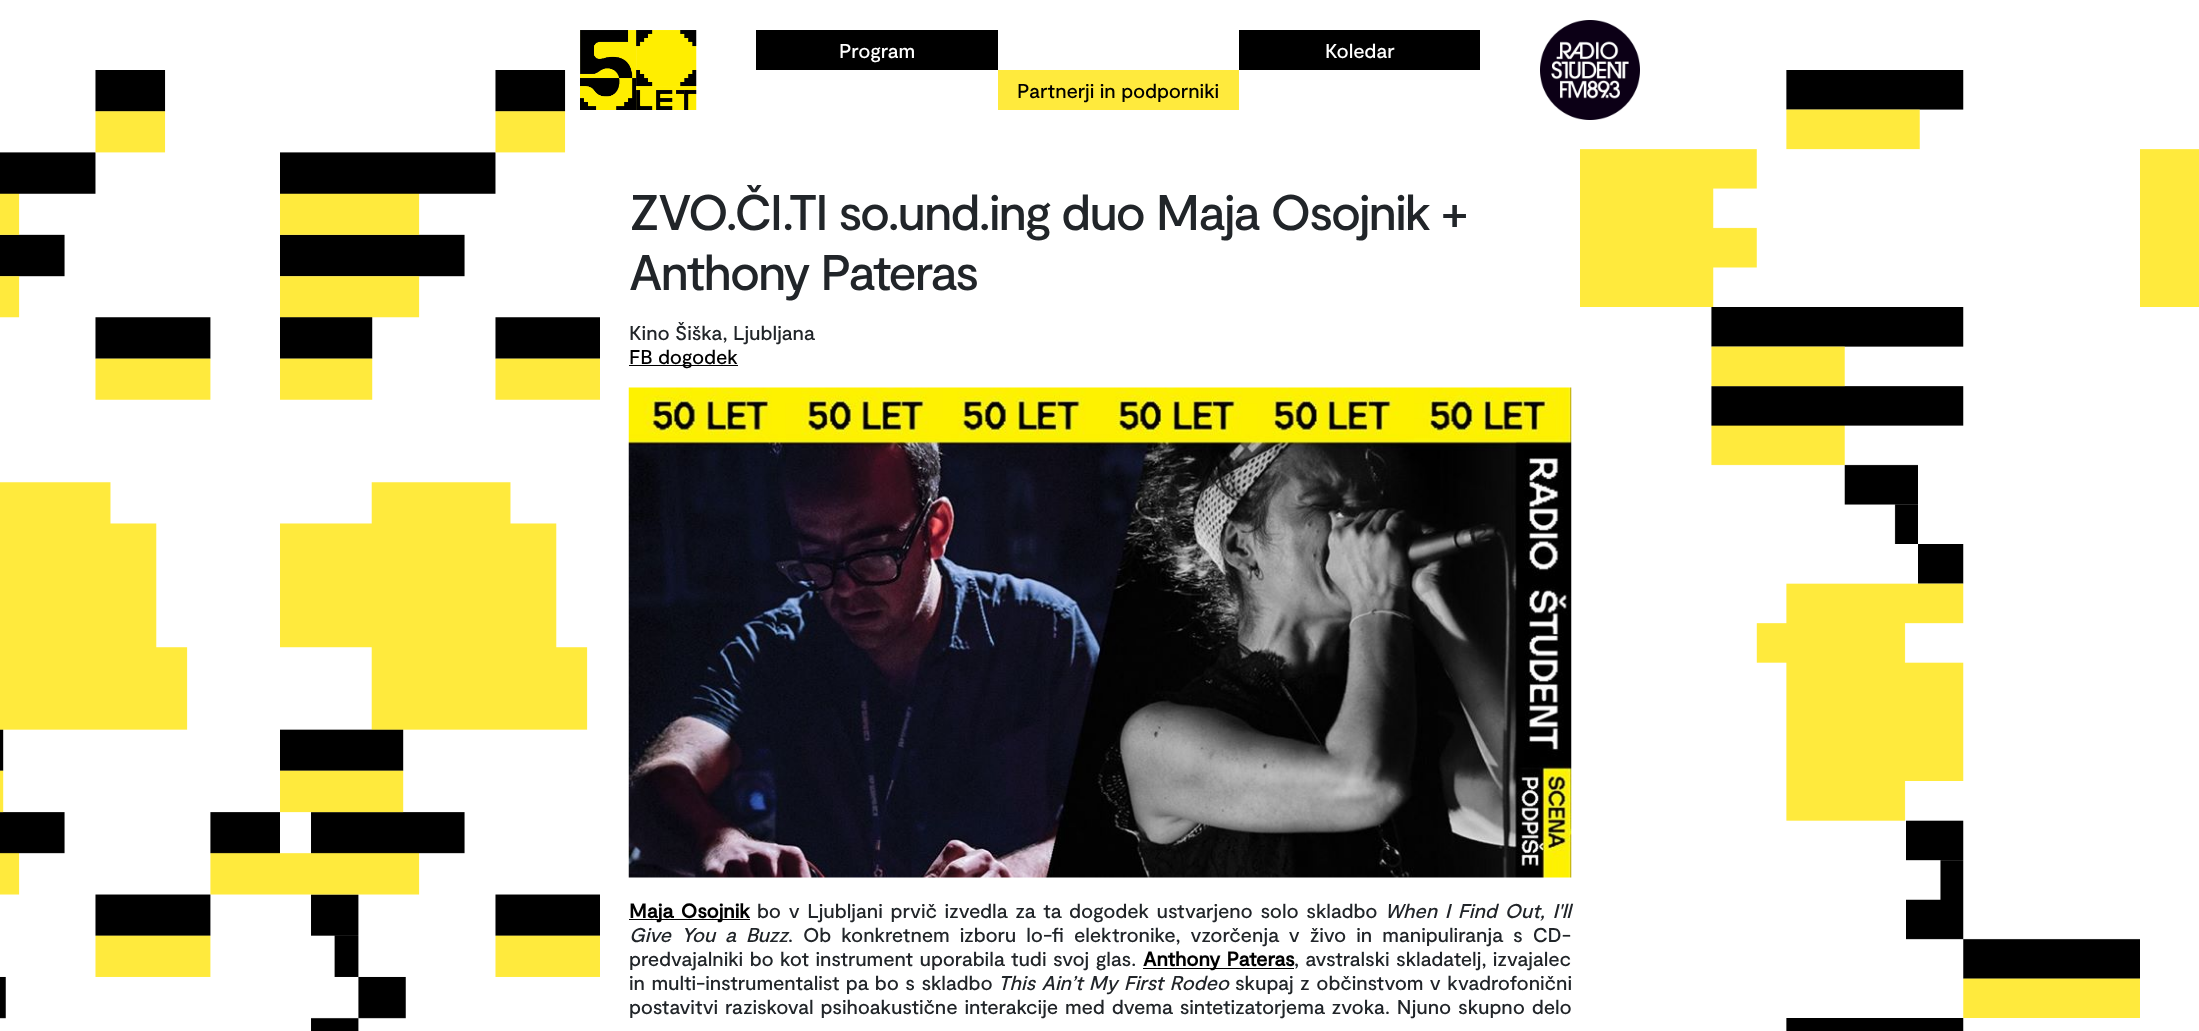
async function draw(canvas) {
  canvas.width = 2199
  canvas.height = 1031
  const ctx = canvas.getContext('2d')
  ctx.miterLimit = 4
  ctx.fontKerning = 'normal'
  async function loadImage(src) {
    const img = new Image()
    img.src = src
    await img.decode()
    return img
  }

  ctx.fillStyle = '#fff'
  ctx.fillRect(0, 0, 2199, 1031)
  ctx.drawImage(await loadImage('image2.png'), 0, 70, 600, 961)
  ctx.drawImage(await loadImage('image0.png'), 580, 30, 117, 80)
  ctx.fillStyle = '#000'
  ctx.fillRect(756, 30, 242, 40)
  ctx.font = '500 20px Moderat'
  ctx.fillStyle = '#fff'
  ctx.fillText('Program', 839, 58)
  ctx.fillStyle = '#000'
  ctx.fillRect(1239, 30, 241, 40)
  ctx.fillStyle = '#fff'
  ctx.fillText('Koledar', 1325, 58)
  ctx.fillStyle = '#ffea3d'
  ctx.fillRect(998, 70, 241, 40)
  ctx.fillStyle = '#000'
  ctx.fillText('Partnerji in podporniki', 1017, 98)
  ctx.drawImage(await loadImage('image3.png'), 1580, 70, 619, 961)
  ctx.drawImage(await loadImage('image1.png'), 1540, 20, 100, 100)
  ctx.letterSpacing = '-1.9px'
  ctx.font = '500 50px Moderat'
  ctx.fillStyle = '#212529'
  ctx.fillText('ZVO.ČI.TI so.und.ing duo Maja Osojnik +', 629, 230)
  ctx.fillText('Anthony Pateras', 629, 290)
  ctx.letterSpacing = '0px'
  ctx.font = '500 20px Moderat'
  ctx.fillText('Kino Šiška, Ljubljana', 629, 340)
  ctx.fillStyle = '#000'
  ctx.fillRect(629, 365, 109, 1)
  ctx.fillText('FB dogodek', 629, 364)
  ctx.drawImage(await loadImage('image4.png'), 628, 387, 944, 491)
  ctx.fillRect(629, 919, 121, 1)
  ctx.wordSpacing = '2.25px'
  ctx.font = 'bold 20px Moderat'
  ctx.fillText('Maja Osojnik', 629, 918)
  ctx.font = '500 20px Moderat'
  ctx.fillStyle = '#212529'
  ctx.fillText('bo v Ljubljani prvič izvedla za ta dogodek ustvarjeno solo skladbo', 757, 918)
  ctx.font = 'italic 500 20px Moderat'
  ctx.fillText('When I Find Out, I\'ll', 1385, 918)
  ctx.wordSpacing = '4.6px'
  ctx.fillText('Give You a Buzz', 629, 942)
  ctx.font = '500 20px Moderat'
  ctx.fillText('. Ob konkretnem izboru lo-fi elektronike, vzorčenja v živo in manipuliranja s CD-', 788, 942)
  ctx.wordSpacing = '1px'
  ctx.fillText('predvajalniki bo kot instrument uporabila tudi svoj glas.', 629, 966)
  ctx.fillStyle = '#000'
  ctx.fillRect(1143, 968, 151, 1)
  ctx.font = 'bold 20px Moderat'
  ctx.fillText('Anthony Pateras', 1143, 966)
  ctx.font = '500 20px Moderat'
  ctx.fillStyle = '#212529'
  ctx.fillText(', avstralski skladatelj, izvajalec', 1294, 966)
  ctx.fillText('in multi-instrumentalist pa bo s skladbo', 629, 990)
  ctx.font = 'italic 500 20px Moderat'
  ctx.fillText('This Ain’t My First Rodeo', 998, 990)
  ctx.font = '500 20px Moderat'
  ctx.fillText('skupaj z občinstvom v kvadrofonični', 1235, 990)
  ctx.wordSpacing = '1.5px'
  ctx.fillText('postavitvi raziskoval psihoakustične interakcije med dvema sintetizatorjema zvoka. Njuno skupno delo', 629, 1014)
}

draw(document.querySelector('canvas'))
